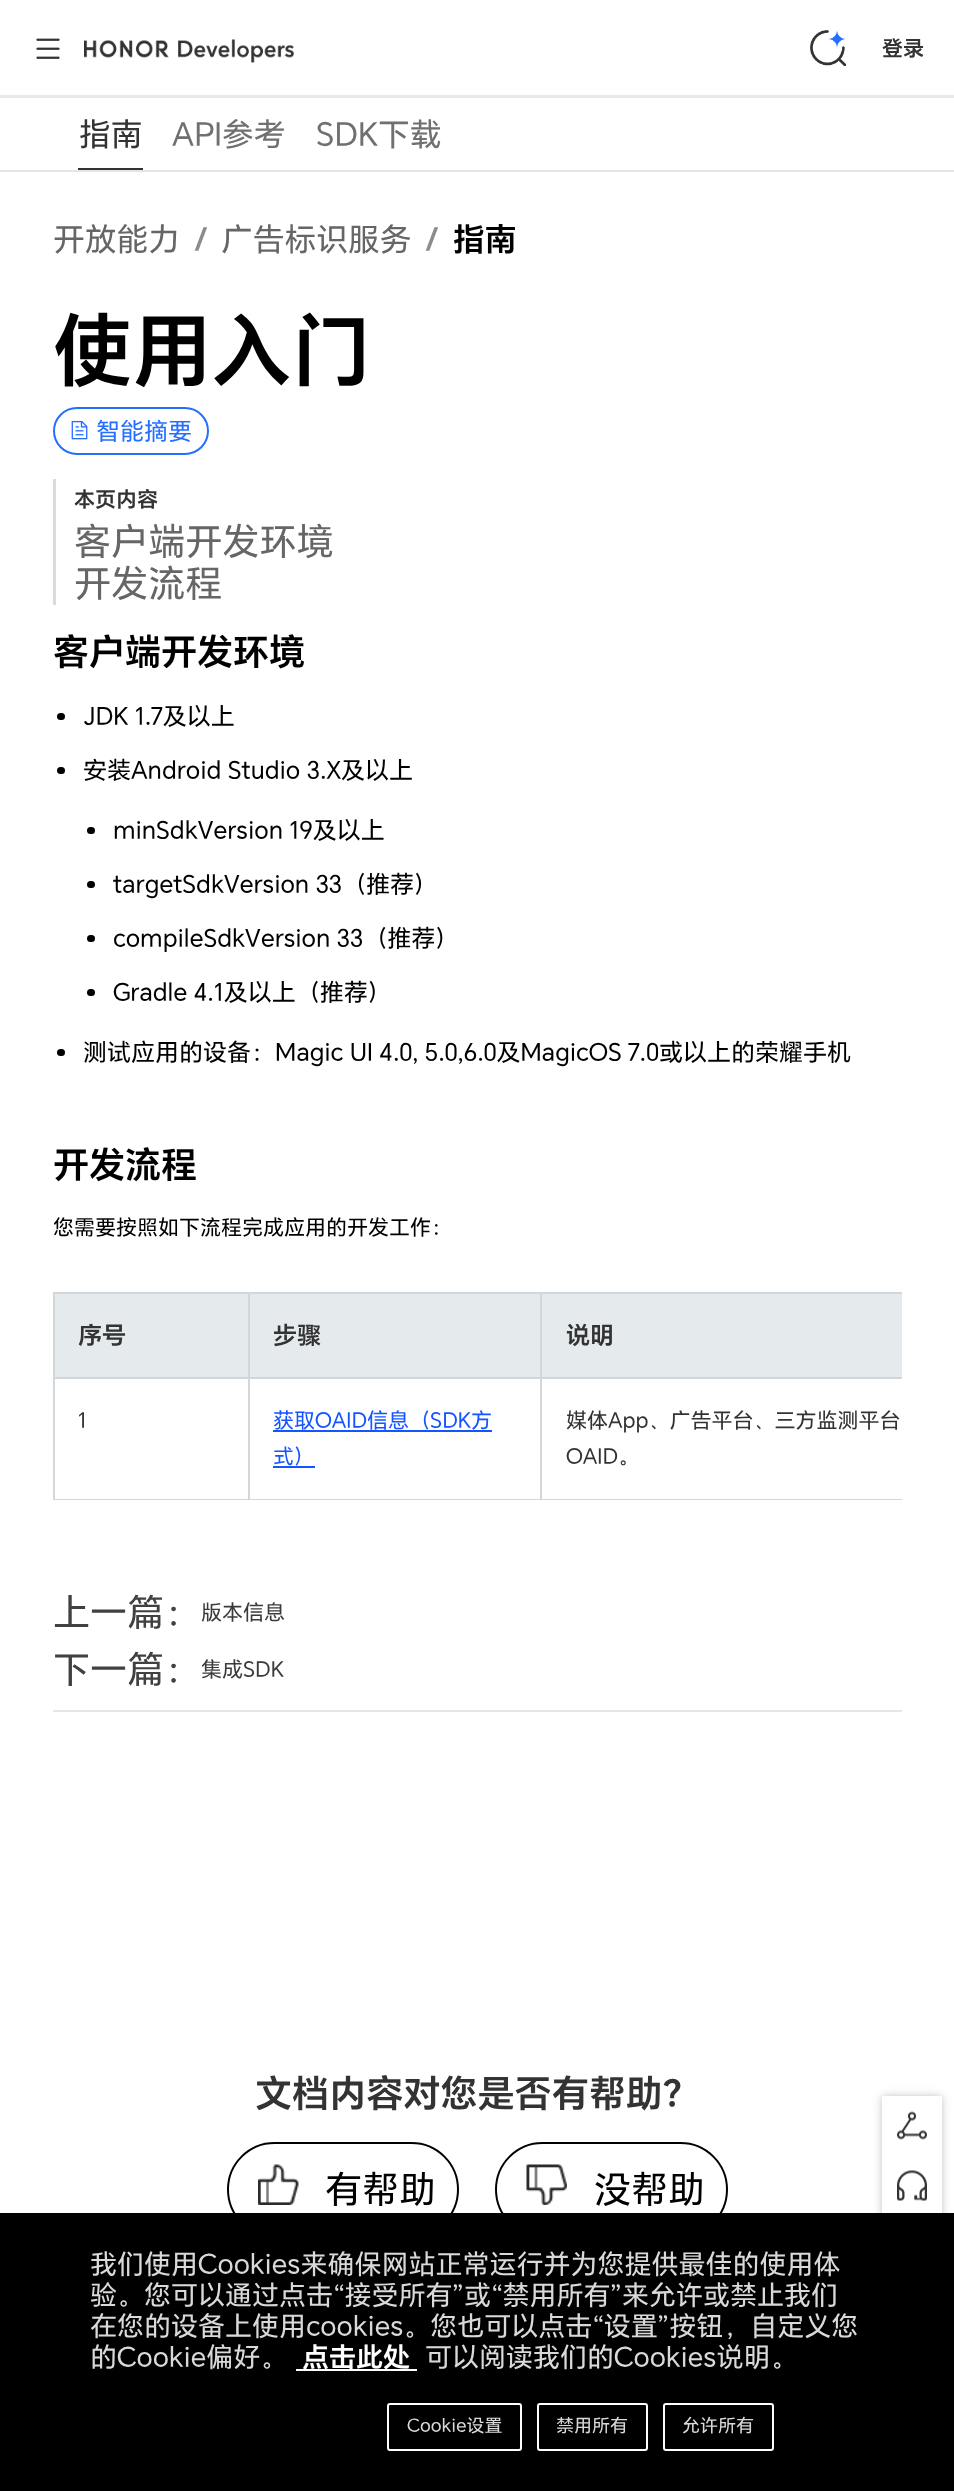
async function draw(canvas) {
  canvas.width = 954
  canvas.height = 2491
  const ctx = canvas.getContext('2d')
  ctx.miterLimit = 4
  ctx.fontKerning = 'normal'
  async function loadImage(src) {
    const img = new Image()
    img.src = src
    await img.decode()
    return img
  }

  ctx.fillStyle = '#fff'
  ctx.fillRect(0, 0, 954, 2491)
  ctx.fillStyle = '#e9e9e9'
  ctx.fillRect(0, 95, 954, 2)
  ctx.drawImage(await loadImage('image0.png'), 36, 38, 24, 21)
  ctx.drawImage(await loadImage('image1.png'), 84, 39, 210, 24)
  ctx.drawImage(await loadImage('image2.png'), 810, 30, 36, 36)
  ctx.font = '600 21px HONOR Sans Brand'
  ctx.fillStyle = '#333'
  ctx.fillText('登录', 882, 56)
  ctx.fillStyle = '#e5e5e5'
  ctx.fillRect(0, 97, 954, 1)
  ctx.fillRect(0, 170, 954, 2)
  ctx.fillStyle = '#333'
  ctx.fillRect(78, 168, 65, 2)
  ctx.font = '31.75px HONOR Sans Brand'
  ctx.fillText('指南', 79, 146)
  ctx.fillStyle = '#707070'
  ctx.fillText('API参考', 172, 146)
  ctx.fillText('SDK下载', 316, 146)
  ctx.fillStyle = '#666'
  ctx.fillText('开放能力', 53, 251)
  ctx.font = '600 31.75px HONOR Sans Brand'
  ctx.fillStyle = '#8c8c8c'
  ctx.fillText('/', 194, 251)
  ctx.font = '31.75px HONOR Sans Brand'
  ctx.fillStyle = '#666'
  ctx.fillText('广告标识服务', 221, 251)
  ctx.font = '600 31.75px HONOR Sans Brand'
  ctx.fillStyle = '#8c8c8c'
  ctx.fillText('/', 425, 251)
  ctx.fillStyle = '#000'
  ctx.fillText('指南', 453, 251)
  ctx.font = '600 79.5px HONOR Sans Brand'
  ctx.fillText('使用入门', 53, 380)
  ctx.beginPath()
  ctx.roundRect(54, 408, 154, 46, 23)
  ctx.strokeStyle = '#256fff'
  ctx.lineWidth = 2
  ctx.stroke()
  ctx.drawImage(await loadImage('image3.png'), 71, 420, 17, 20)
  ctx.font = '24px HONOR Sans Brand'
  ctx.fillStyle = '#256fff'
  ctx.fillText('智能摘要', 96, 440)
  ctx.fillStyle = '#dbdbdb'
  ctx.fillRect(53, 479, 3, 126)
  ctx.font = '600 21px HONOR Sans Brand'
  ctx.fillStyle = '#333'
  ctx.fillText('本页内容', 74, 507)
  ctx.font = '37.1px HONOR Sans Brand'
  ctx.fillStyle = '#666'
  ctx.fillText('客户端开发环境', 74, 555)
  ctx.fillText('开发流程', 74, 597)
  ctx.font = '600 36px HONOR Sans Brand'
  ctx.fillStyle = '#000'
  ctx.fillText('客户端开发环境', 53, 665)
  ctx.beginPath()
  ctx.roundRect(57, 713, 8, 7, 3.5)
  ctx.fill()
  ctx.font = '24px HONOR Sans Brand'
  ctx.fillText('JDK 1.7及以上', 83, 725)
  ctx.beginPath()
  ctx.roundRect(57, 767, 8, 7, 3.5)
  ctx.fill()
  ctx.fillText('安装Android Studio 3.X及以上', 83, 779)
  ctx.beginPath()
  ctx.roundRect(87, 827, 8, 7, 3.5)
  ctx.fill()
  ctx.fillText('minSdkVersion 19及以上', 113, 839)
  ctx.beginPath()
  ctx.roundRect(87, 881, 8, 7, 3.5)
  ctx.fill()
  ctx.fillText('targetSdkVersion 33（推荐）', 113, 893)
  ctx.beginPath()
  ctx.roundRect(87, 935, 8, 7, 3.5)
  ctx.fill()
  ctx.fillText('compileSdkVersion 33（推荐）', 113, 947)
  ctx.beginPath()
  ctx.roundRect(87, 989, 8, 7, 3.5)
  ctx.fill()
  ctx.fillText('Gradle 4.1及以上（推荐）', 113, 1001)
  ctx.beginPath()
  ctx.roundRect(57, 1049, 8, 7, 3.5)
  ctx.fill()
  ctx.fillText('测试应用的设备：Magic UI 4.0, 5.0,6.0及MagicOS 7.0或以上的荣耀手机', 83, 1061)
  ctx.font = '600 36px HONOR Sans Brand'
  ctx.fillText('开发流程', 53, 1178)
  ctx.font = '21px HONOR Sans Brand'
  ctx.fillText('您需要按照如下流程完成应用的开发工作：', 53, 1235)
  ctx.fillStyle = '#d1d7da'
  ctx.fillRect(53, 1292, 849, 2)
  ctx.fillRect(53, 1499, 849, 1)
  ctx.fillRect(53, 1292, 2, 208)
  ctx.fillStyle = '#e5eaed'
  ctx.fillRect(55, 1294, 193, 83)
  ctx.font = '600 24px HONOR Sans Brand'
  ctx.fillStyle = '#333'
  ctx.fillText('序号', 78, 1344)
  ctx.fillStyle = '#e5eaed'
  ctx.fillRect(250, 1294, 290, 83)
  ctx.fillStyle = '#d1d7da'
  ctx.fillRect(540, 1377, 362, 2)
  ctx.fillRect(540, 1377, 2, 123)
  ctx.fillRect(248, 1377, 294, 2)
  ctx.fillRect(248, 1377, 2, 123)
  ctx.fillRect(53, 1377, 196, 2)
  ctx.fillRect(248, 1292, 2, 87)
  ctx.fillStyle = '#333'
  ctx.fillText('步骤', 273, 1344)
  ctx.fillStyle = '#e5eaed'
  ctx.fillRect(542, 1294, 360, 83)
  ctx.fillStyle = '#d1d7da'
  ctx.fillRect(540, 1292, 2, 87)
  ctx.fillStyle = '#333'
  ctx.fillText('说明', 566, 1344)
  ctx.font = '21px HONOR Sans Brand'
  ctx.fillText('1', 78, 1428)
  ctx.fillStyle = '#1455ff'
  ctx.fillText('获取OAID信息（SDK方', 273, 1428)
  ctx.fillRect(273, 1430, 219, 2)
  ctx.fillText('式）', 273, 1464)
  ctx.fillRect(273, 1466, 42, 2)
  ctx.fillStyle = '#333'
  ctx.fillText('媒体App、广告平台、三方监测平台', 566, 1428)
  ctx.fillText('OAID。', 566, 1464)
  ctx.fillStyle = '#e6e6e6'
  ctx.fillRect(53, 1710, 849, 2)
  ctx.font = '37.1px HONOR Sans Brand'
  ctx.fillStyle = '#414141'
  ctx.fillText('上一篇：', 53, 1626)
  ctx.font = '21px HONOR Sans Brand'
  ctx.fillStyle = '#3b3b3b'
  ctx.fillText('版本信息', 201, 1620)
  ctx.font = '37.1px HONOR Sans Brand'
  ctx.fillStyle = '#414141'
  ctx.fillText('下一篇：', 53, 1683)
  ctx.font = '21px HONOR Sans Brand'
  ctx.fillStyle = '#3b3b3b'
  ctx.fillText('集成SDK', 201, 1677)
  ctx.font = '600 37.1px HONOR Sans Brand'
  ctx.fillStyle = '#333'
  ctx.fillText('文档内容对您是否有帮助？', 255, 2107)
  ctx.beginPath()
  ctx.roundRect(228, 2143, 230, 93, 46.5)
  ctx.strokeStyle = '#000'
  ctx.stroke()
  ctx.drawImage(await loadImage('image4.png'), 258, 2164, 41, 41)
  ctx.font = '37.1px HONOR Sans Brand'
  ctx.fillStyle = '#000'
  ctx.fillText('有帮助', 325, 2203)
  ctx.beginPath()
  ctx.roundRect(496, 2143, 231, 93, 46.5)
  ctx.stroke()
  ctx.drawImage(await loadImage('image5.png'), 526, 2164, 41, 41)
  ctx.fillText('没帮助', 594, 2203)
  ctx.save()
  ctx.beginPath()
  ctx.moveTo(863, 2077)
  ctx.lineTo(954, 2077)
  ctx.lineTo(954, 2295)
  ctx.lineTo(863, 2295)
  ctx.closePath()
  ctx.moveTo(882, 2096)
  ctx.lineTo(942, 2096)
  ctx.lineTo(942, 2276)
  ctx.lineTo(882, 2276)
  ctx.closePath()
  ctx.clip('evenodd')
  ctx.fillStyle = '#0000001c'
  ctx.filter = 'blur(6px)'
  ctx.beginPath()
  ctx.rect(882, 2096, 60, 180)
  ctx.fill()
  ctx.filter = 'none'
  ctx.restore()
  ctx.save()
  ctx.beginPath()
  ctx.moveTo(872, 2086)
  ctx.lineTo(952, 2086)
  ctx.lineTo(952, 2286)
  ctx.lineTo(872, 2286)
  ctx.closePath()
  ctx.moveTo(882, 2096)
  ctx.lineTo(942, 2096)
  ctx.lineTo(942, 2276)
  ctx.lineTo(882, 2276)
  ctx.closePath()
  ctx.clip('evenodd')
  ctx.fillStyle = '#00000021'
  ctx.filter = 'blur(3px)'
  ctx.beginPath()
  ctx.rect(882, 2096, 60, 180)
  ctx.fill()
  ctx.filter = 'none'
  ctx.restore()
  ctx.drawImage(await loadImage('image6.png'), 897, 2111, 30, 29)
  ctx.drawImage(await loadImage('image7.png'), 897, 2170, 30, 31)
  ctx.fillRect(0, 2213, 954, 278)
  ctx.font = '27px HONOR Sans Brand'
  ctx.fillStyle = '#d9d9d9'
  ctx.fillText('我们使用Cookies来确保网站正常运行并为您提供最佳的使用体', 90, 2274)
  ctx.fillText('验。您可以通过点击“接受所有”或“禁用所有”来允许或禁止我们', 90, 2305)
  ctx.fillText('在您的设备上使用cookies。您也可以点击“设置”按钮，自定义您', 90, 2336)
  ctx.fillText('的Cookie偏好。', 90, 2367)
  ctx.fillStyle = '#fff'
  ctx.fillRect(296, 2369, 121, 2)
  ctx.font = '600 27px HONOR Sans Brand'
  ctx.fillText('点击此处', 302, 2367)
  ctx.font = '27px HONOR Sans Brand'
  ctx.fillStyle = '#d9d9d9'
  ctx.fillText('可以阅读我们的Cookies说明。', 425, 2367)
  ctx.beginPath()
  ctx.roundRect(388, 2404, 133, 46, 2)
  ctx.strokeStyle = '#fdfdfd'
  ctx.stroke()
  ctx.font = '18px HONOR Sans Brand'
  ctx.fillText('Cookie设置', 407, 2432)
  ctx.beginPath()
  ctx.roundRect(538, 2404, 109, 46, 2)
  ctx.stroke()
  ctx.fillText('禁用所有', 556, 2432)
  ctx.beginPath()
  ctx.roundRect(664, 2404, 109, 46, 2)
  ctx.stroke()
  ctx.fillText('允许所有', 682, 2432)
}

draw(document.querySelector('canvas'))
